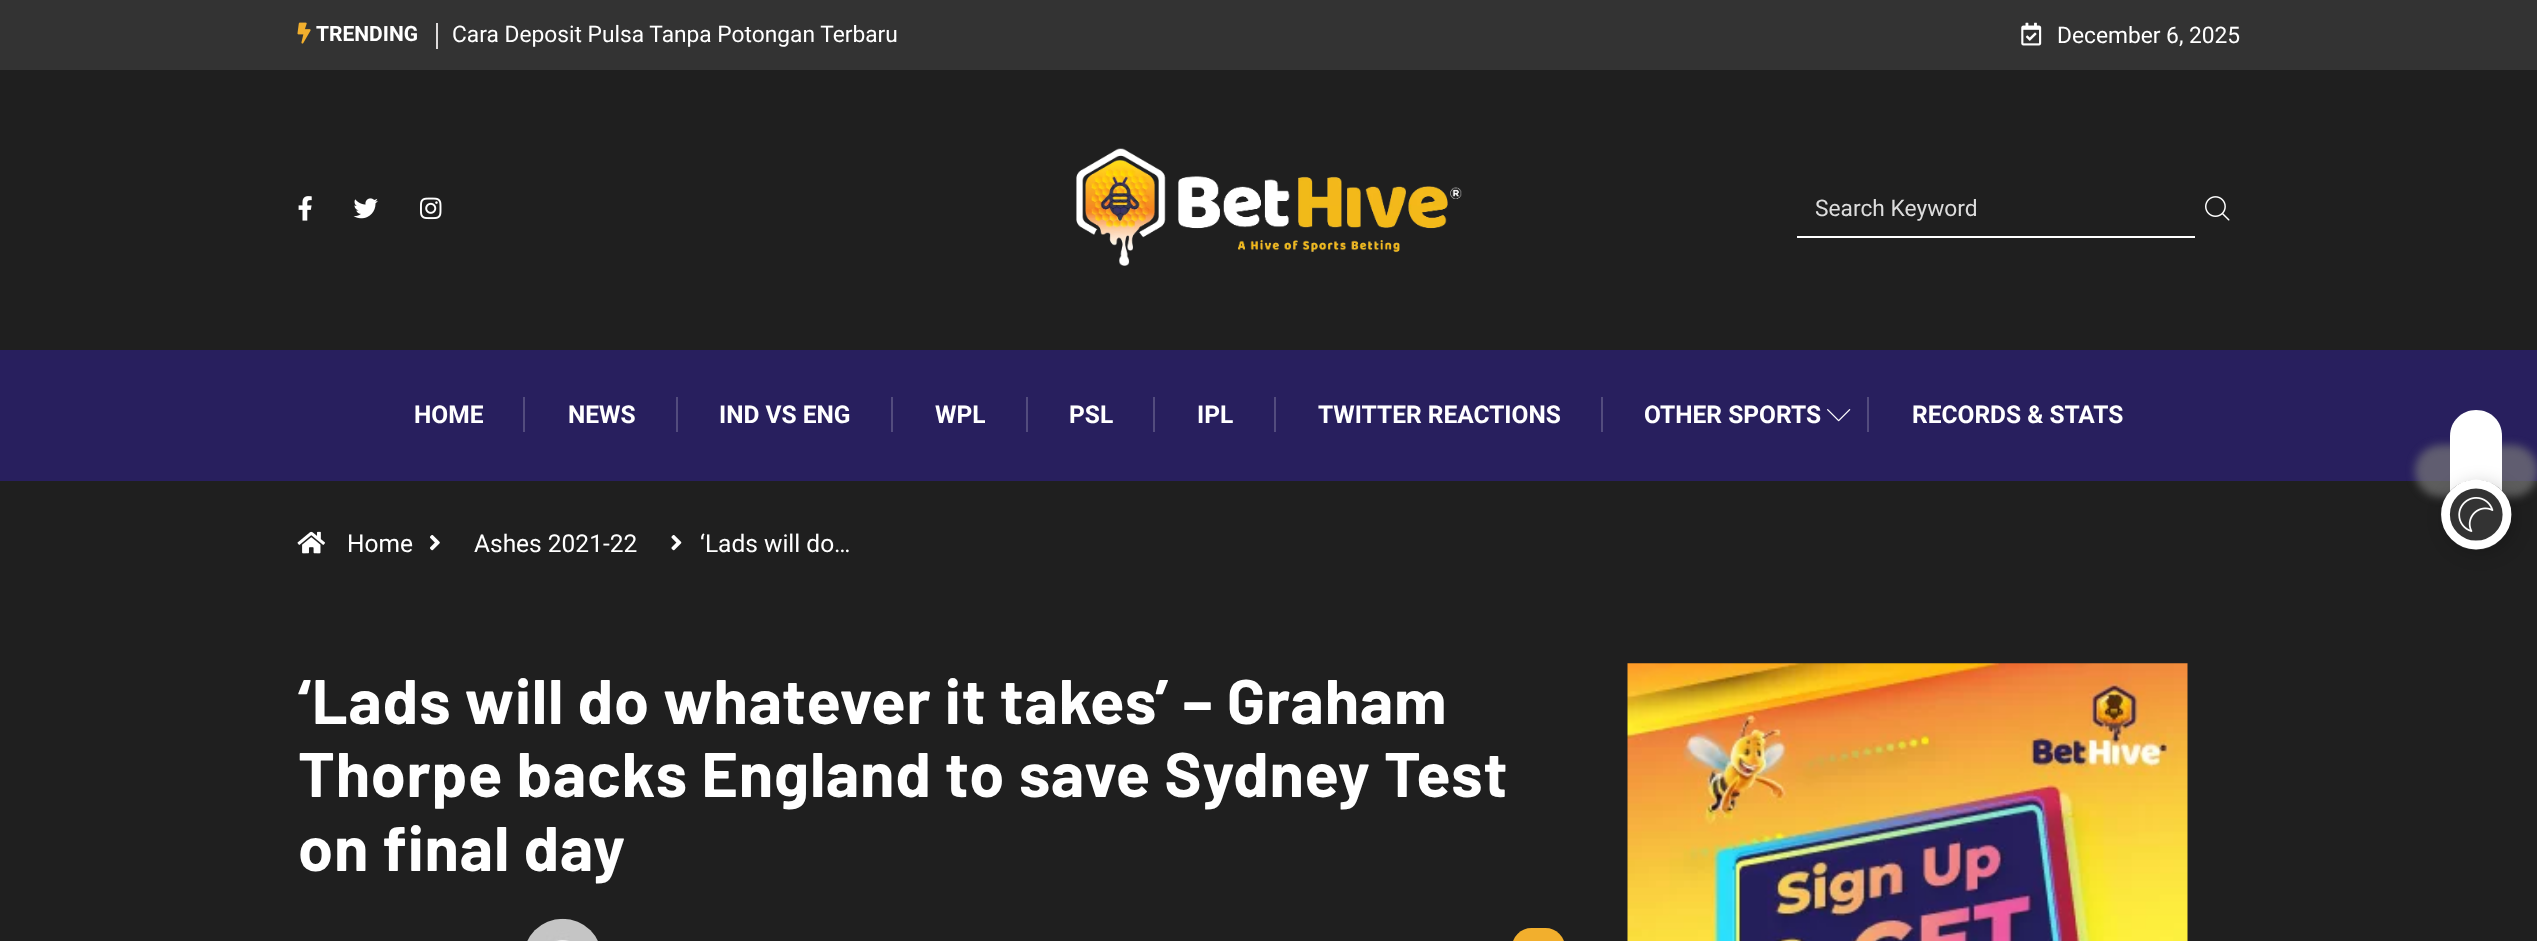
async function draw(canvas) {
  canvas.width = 2537
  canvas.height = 941
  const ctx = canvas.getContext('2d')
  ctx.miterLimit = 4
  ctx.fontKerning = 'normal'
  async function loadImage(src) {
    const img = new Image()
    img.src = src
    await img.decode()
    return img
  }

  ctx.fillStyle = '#1f1f1f'
  ctx.fillRect(0, 0, 2537, 941)
  ctx.fillStyle = '#333'
  ctx.fillRect(0, 0, 2537, 70)
  ctx.fillStyle = '#dedbdb'
  ctx.fillRect(436, 23, 2, 26)
  ctx.drawImage(await loadImage('image0.png'), 297, 22, 14, 22)
  ctx.font = 'bold 21px Roboto'
  ctx.fillStyle = '#fff'
  ctx.fillText('TRENDING', 316, 41)
  ctx.font = '22.75px Roboto'
  ctx.fillText('Cara Deposit Pulsa Tanpa Potongan Terbaru', 452, 42)
  ctx.drawImage(await loadImage('image1.png'), 2021, 22, 21, 24)
  ctx.fillText('December 6, 2025', 2057, 43)
  ctx.drawImage(await loadImage('image2.png'), 298, 196, 14, 25)
  ctx.drawImage(await loadImage('image3.png'), 353, 198, 25, 21)
  ctx.drawImage(await loadImage('image4.png'), 420, 197, 22, 23)
  ctx.drawImage(await loadImage('image5.png'), 1076, 148, 386, 118)
  ctx.fillRect(1797, 236, 398, 2)
  ctx.fillStyle = '#ddd'
  ctx.fillText('Search Keyword', 1815, 216)
  ctx.drawImage(await loadImage('image6.png'), 2205, 196, 25, 25)
  ctx.fillStyle = '#281f5e'
  ctx.fillRect(0, 350, 2537, 131)
  ctx.font = 'bold 24.5px Roboto'
  ctx.fillStyle = '#fff'
  ctx.fillText('HOME', 414, 423)
  ctx.fillStyle = '#534c7e'
  ctx.fillRect(523, 397, 2, 35)
  ctx.fillStyle = '#fff'
  ctx.fillText('NEWS', 568, 423)
  ctx.fillStyle = '#534c7e'
  ctx.fillRect(676, 397, 2, 35)
  ctx.fillStyle = '#fff'
  ctx.fillText('IND VS ENG', 719, 423)
  ctx.fillStyle = '#534c7e'
  ctx.fillRect(891, 397, 2, 35)
  ctx.fillStyle = '#fff'
  ctx.fillText('WPL', 935, 423)
  ctx.fillStyle = '#534c7e'
  ctx.fillRect(1026, 397, 2, 35)
  ctx.fillStyle = '#fff'
  ctx.fillText('PSL', 1069, 423)
  ctx.fillStyle = '#534c7e'
  ctx.fillRect(1153, 397, 2, 35)
  ctx.fillStyle = '#fff'
  ctx.fillText('IPL', 1197, 423)
  ctx.fillStyle = '#534c7e'
  ctx.fillRect(1274, 397, 2, 35)
  ctx.fillStyle = '#fff'
  ctx.fillText('TWITTER REACTIONS', 1318, 423)
  ctx.fillStyle = '#534c7e'
  ctx.fillRect(1601, 397, 2, 35)
  ctx.fillStyle = '#fff'
  ctx.fillText('OTHER SPORTS', 1644, 423)
  ctx.drawImage(await loadImage('image7.png'), 1827, 409, 24, 13)
  ctx.fillStyle = '#534c7e'
  ctx.fillRect(1867, 397, 2, 35)
  ctx.fillStyle = '#fff'
  ctx.fillText('RECORDS & STATS', 1912, 423)
  ctx.drawImage(await loadImage('image8.png'), 297, 531, 28, 23)
  ctx.font = '24.5px Roboto'
  ctx.fillText('Home', 347, 552)
  ctx.drawImage(await loadImage('image9.png'), 430, 535, 10, 16)
  ctx.fillText('Ashes 2021-22', 474, 552)
  ctx.drawImage(await loadImage('image10.png'), 671, 535, 11, 16)
  ctx.fillText('‘Lads will do…', 700, 552)
  ctx.letterSpacing = '0.8px'
  ctx.font = 'bold 63px Barlow'
  ctx.fillText('‘Lads will do whatever it takes’ – Graham', 298, 724)
  ctx.fillText('Thorpe backs England to save Sydney Test', 298, 797)
  ctx.fillText('on final day', 298, 871)
  ctx.drawImage(await loadImage('image11.png'), 527, 918, 71, 23)
  ctx.fillStyle = '#f2af2d'
  ctx.beginPath()
  ctx.roundRect(1512, 928, 53, 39, 26)
  ctx.fill()
  ctx.drawImage(await loadImage('image12.png'), 1627, 663, 561, 278)
  ctx.fillStyle = '#777777b3'
  ctx.filter = 'blur(4.5px)'
  ctx.beginPath()
  ctx.roundRect(2415, 445, 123, 52, 26)
  ctx.fill()
  ctx.filter = 'none'
  ctx.fillStyle = '#fff'
  ctx.beginPath()
  ctx.moveTo(2502, 436)
  ctx.lineTo(2502, 506)
  ctx.bezierCurveTo(2502, 520, 2491, 532, 2476, 532)
  ctx.bezierCurveTo(2462, 532, 2450, 520, 2450, 506)
  ctx.lineTo(2450, 436)
  ctx.bezierCurveTo(2450, 421, 2462, 410, 2476, 410)
  ctx.bezierCurveTo(2491, 410, 2502, 421, 2502, 436)
  ctx.closePath()
  ctx.fill()
  ctx.fillStyle = '#00000033'
  ctx.filter = 'blur(9px)'
  ctx.beginPath()
  ctx.roundRect(2445, 483, 70, 70, 35)
  ctx.fill()
  ctx.filter = 'none'
  ctx.fillStyle = '#333'
  ctx.beginPath()
  ctx.moveTo(2511, 514)
  ctx.bezierCurveTo(2511, 534, 2496, 550, 2476, 550)
  ctx.bezierCurveTo(2457, 550, 2441, 534, 2441, 514)
  ctx.bezierCurveTo(2441, 495, 2457, 480, 2476, 480)
  ctx.bezierCurveTo(2496, 480, 2511, 495, 2511, 514)
  ctx.closePath()
  ctx.fill()
  ctx.beginPath()
  ctx.moveTo(2507, 514.5)
  ctx.bezierCurveTo(2507, 531.5, 2493, 545, 2476, 545)
  ctx.bezierCurveTo(2459.5, 545, 2445.5, 531.5, 2445.5, 514.5)
  ctx.bezierCurveTo(2445.5, 497.5, 2459.5, 484, 2476, 484)
  ctx.bezierCurveTo(2493, 484, 2507, 497.5, 2507, 514.5)
  ctx.closePath()
  ctx.strokeStyle = '#fff'
  ctx.lineWidth = 8.8
  ctx.stroke()
  ctx.drawImage(await loadImage('image13.png'), 2458, 497, 36, 35)
}

draw(document.querySelector('canvas'))
